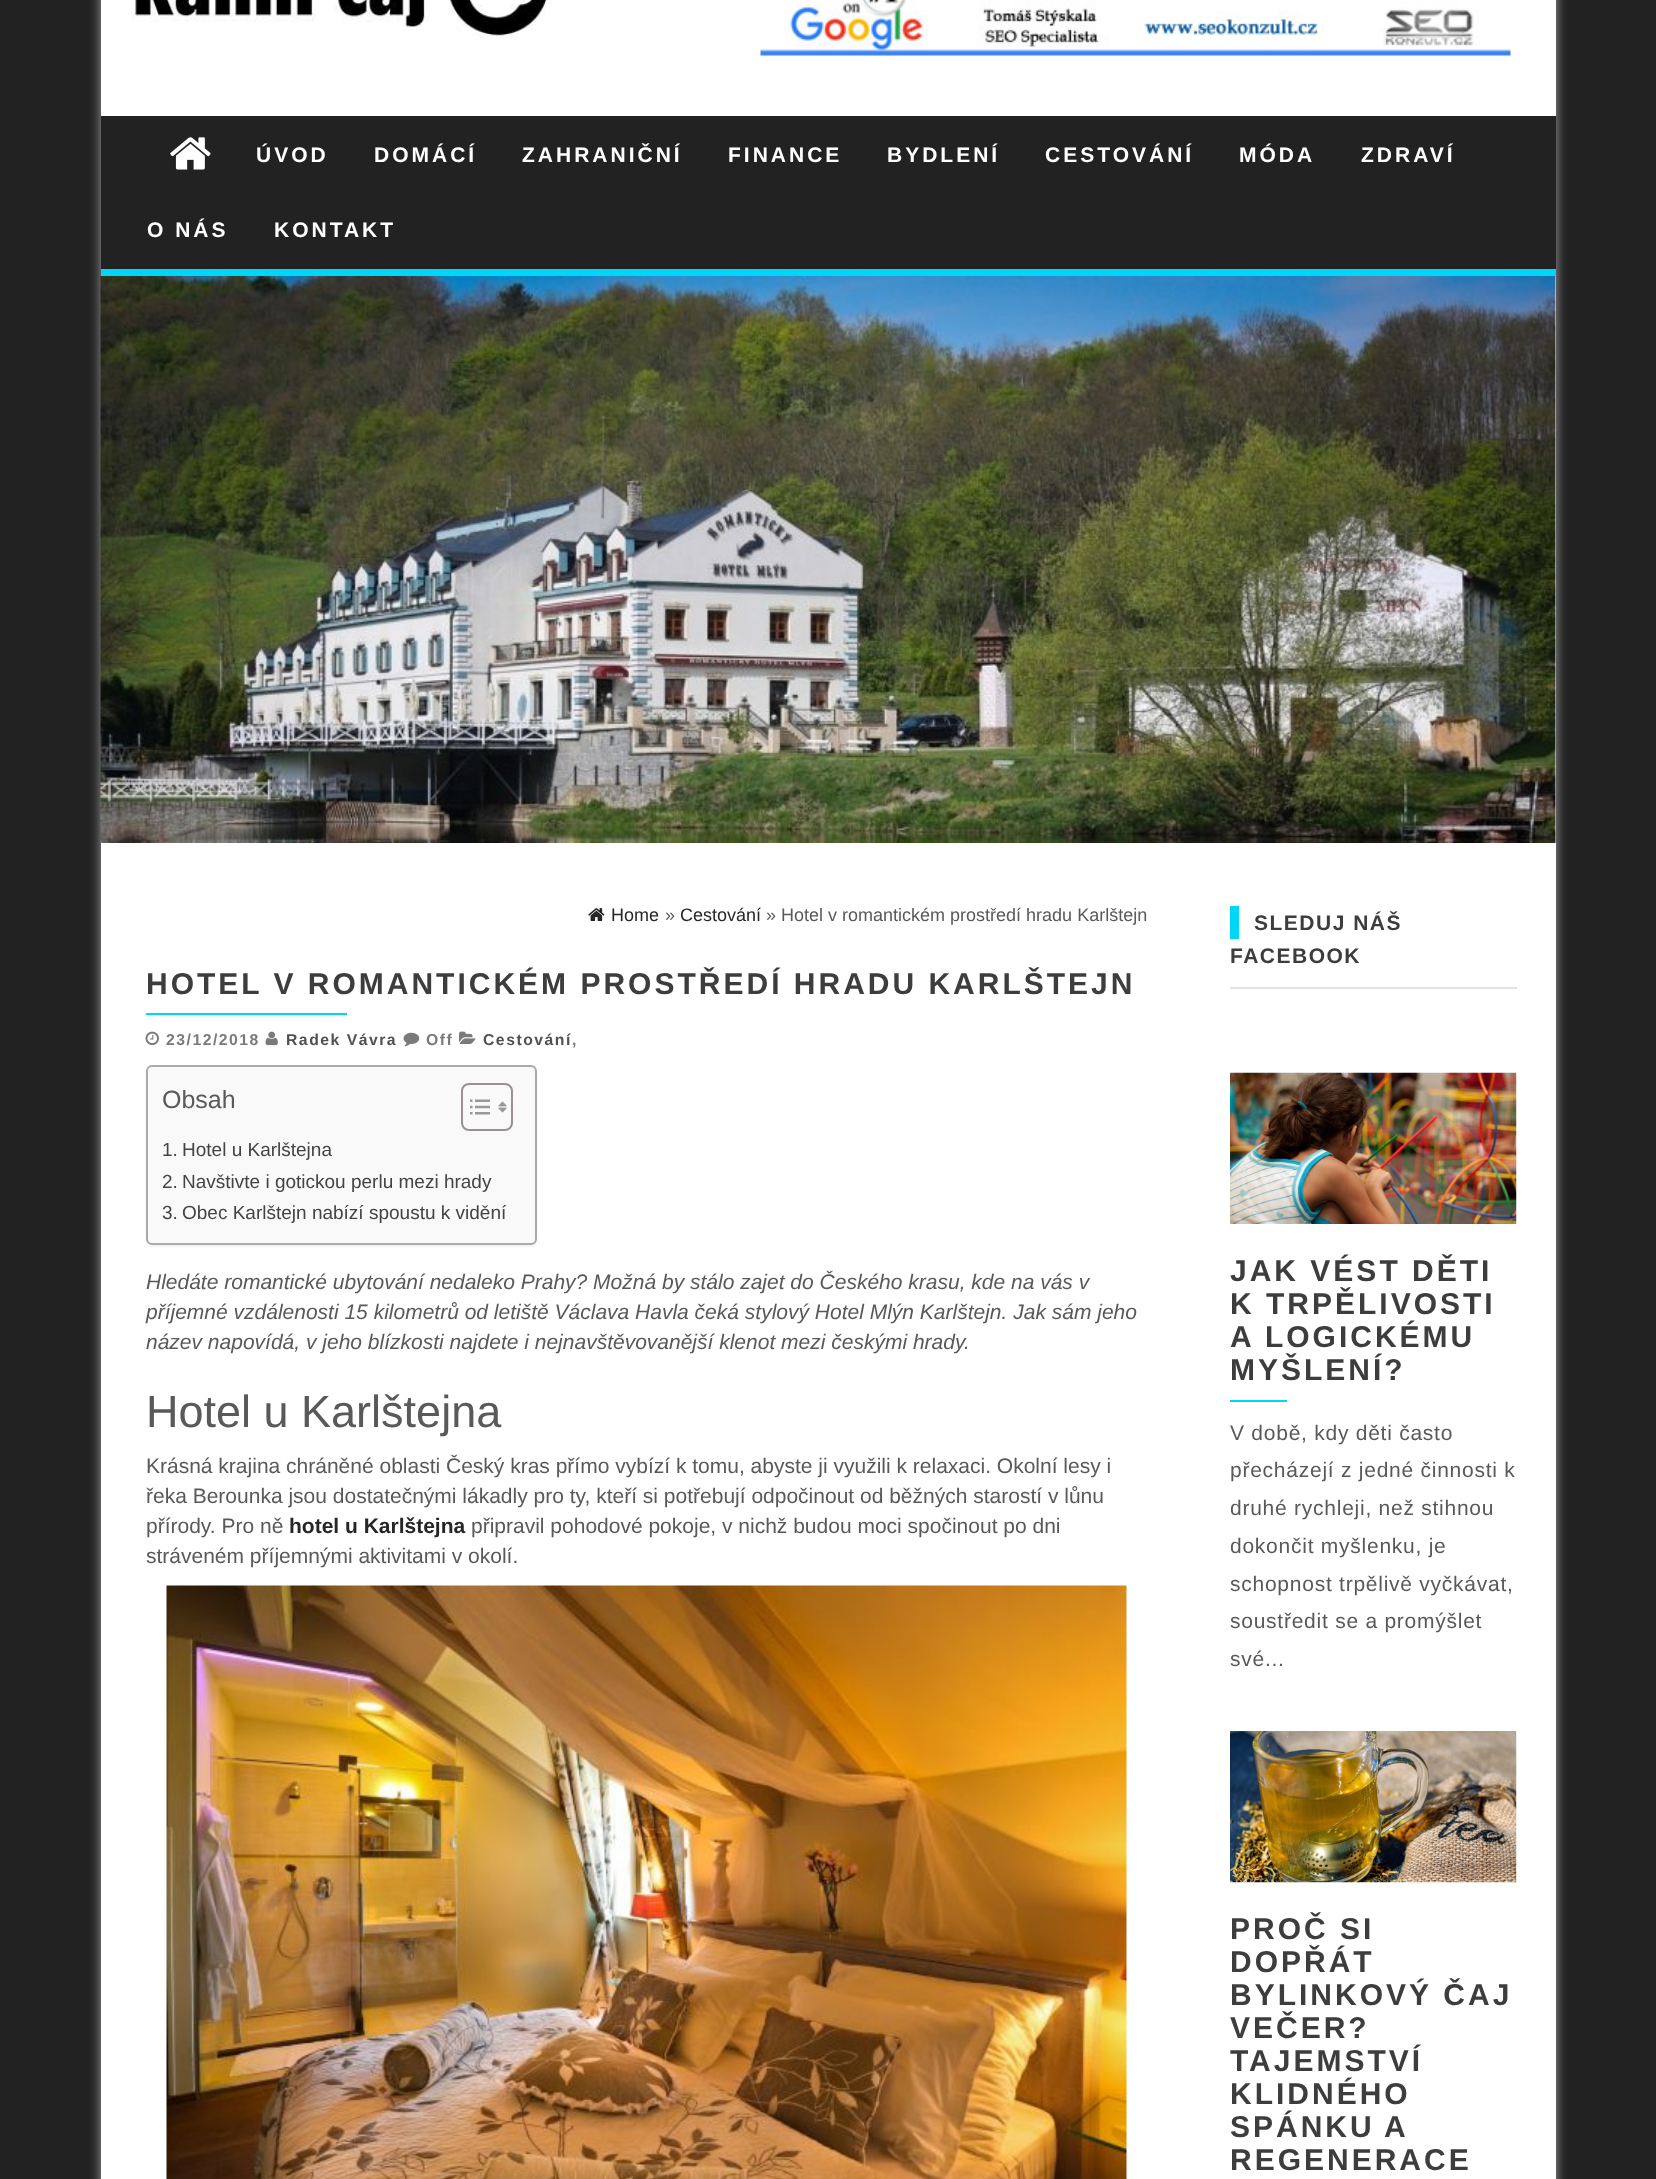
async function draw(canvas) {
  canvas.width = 1656
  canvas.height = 2179
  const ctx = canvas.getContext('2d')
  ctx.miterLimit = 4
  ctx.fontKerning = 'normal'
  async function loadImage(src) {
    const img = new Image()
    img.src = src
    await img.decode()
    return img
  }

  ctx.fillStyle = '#222'
  ctx.fillRect(0, 0, 1656, 2179)
  ctx.fillStyle = '#a1a1a1'
  ctx.filter = 'blur(6px)'
  ctx.beginPath()
  ctx.rect(101, -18, 1455, 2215)
  ctx.fill()
  ctx.filter = 'none'
  ctx.fillStyle = '#fff'
  ctx.fillRect(101, 0, 1455, 116)
  ctx.drawImage(await loadImage('image0.png'), 132, 0, 420, 40)
  ctx.drawImage(await loadImage('image1.png'), 760, 0, 751, 56)
  ctx.fillStyle = '#00d6f7'
  ctx.fillRect(101, 269, 1455, 7)
  ctx.fillStyle = '#222'
  ctx.fillRect(101, 116, 1455, 153)
  ctx.drawImage(await loadImage('image2.png'), 170, 137, 41, 33)
  ctx.letterSpacing = '3px'
  ctx.font = 'bold 21px Liberation Sans'
  ctx.fillStyle = '#fff'
  ctx.fillText('ÚVOD', 256, 162)
  ctx.fillText('DOMÁCÍ', 374, 162)
  ctx.fillText('ZAHRANIČNÍ', 522, 162)
  ctx.fillText('FINANCE', 728, 162)
  ctx.fillText('BYDLENÍ', 887, 162)
  ctx.fillText('CESTOVÁNÍ', 1045, 162)
  ctx.fillText('MÓDA', 1239, 162)
  ctx.fillText('ZDRAVÍ', 1361, 162)
  ctx.fillText('O NÁS', 147, 237)
  ctx.fillText('KONTAKT', 274, 237)
  ctx.fillRect(1555, 276, 1, 567)
  ctx.drawImage(await loadImage('image3.png'), 100, 276, 1456, 567)
  ctx.fillRect(101, 843, 1455, 1336)
  ctx.drawImage(await loadImage('image4.png'), 588, 908, 17, 13)
  ctx.letterSpacing = '0px'
  ctx.font = '18px Liberation Sans'
  ctx.fillStyle = '#262626'
  ctx.fillText('Home', 611, 921)
  ctx.fillStyle = '#595959'
  ctx.fillText('»', 665, 921)
  ctx.fillStyle = '#262626'
  ctx.fillText('Cestování', 680, 921)
  ctx.fillStyle = '#595959'
  ctx.fillText('» Hotel v romantickém prostředí hradu Karlštejn', 766, 921)
  ctx.letterSpacing = '3px'
  ctx.font = 'bold 30px Liberation Sans'
  ctx.fillStyle = '#3d3d3d'
  ctx.fillText('HOTEL V ROMANTICKÉM PROSTŘEDÍ HRADU KARLŠTEJN', 146, 994)
  ctx.fillStyle = '#00d6f7'
  ctx.fillRect(146, 1013, 201, 2)
  ctx.drawImage(await loadImage('image5.png'), 145, 1031, 14, 15)
  ctx.letterSpacing = '1.5px'
  ctx.font = 'bold 15.75px Liberation Sans'
  ctx.fillStyle = '#7a7a7a'
  ctx.fillText('23/12/2018', 166, 1045)
  ctx.drawImage(await loadImage('image6.png'), 265, 1031, 13, 15)
  ctx.fillStyle = '#515151'
  ctx.fillText('Radek Vávra', 286, 1045)
  ctx.drawImage(await loadImage('image7.png'), 403, 1032, 17, 15)
  ctx.fillStyle = '#7a7a7a'
  ctx.fillText('Off', 426, 1045)
  ctx.drawImage(await loadImage('image8.png'), 459, 1031, 17, 13)
  ctx.fillStyle = '#515151'
  ctx.fillText('Cestování', 483, 1045)
  ctx.fillStyle = '#7a7a7a'
  ctx.fillText(',', 572, 1045)
  ctx.fillStyle = '#0000000d'
  ctx.filter = 'blur(1px)'
  ctx.beginPath()
  ctx.roundRect(146, 1067, 391, 180, 6)
  ctx.fill()
  ctx.filter = 'none'
  ctx.fillStyle = '#f9f9f9'
  ctx.beginPath()
  ctx.roundRect(147, 1066, 389, 178, 5)
  ctx.fill()
  ctx.strokeStyle = '#aaa'
  ctx.lineWidth = 2
  ctx.stroke()
  ctx.letterSpacing = '0px'
  ctx.font = '25px Liberation Sans'
  ctx.fillStyle = '#595959'
  ctx.fillText('Obsah', 162, 1108)
  ctx.beginPath()
  ctx.roundRect(462, 1084, 50, 46, 7)
  ctx.strokeStyle = '#999191'
  ctx.stroke()
  ctx.drawImage(await loadImage('image9.png'), 470, 1099, 20, 16)
  ctx.drawImage(await loadImage('image10.png'), 498, 1101, 9, 12)
  ctx.font = '19px Liberation Sans'
  ctx.fillStyle = '#444'
  ctx.fillText('1.', 162, 1156)
  ctx.fillText('Hotel u Karlštejna', 182, 1156)
  ctx.fillText('2.', 162, 1188)
  ctx.fillText('Navštivte i gotickou perlu mezi hrady', 182, 1188)
  ctx.fillText('3.', 162, 1219)
  ctx.fillText('Obec Karlštejn nabízí spoustu k vidění', 182, 1219)
  ctx.font = 'italic 21px Liberation Sans'
  ctx.fillStyle = '#595959'
  ctx.fillText('Hledáte romantické ubytování nedaleko Prahy? Možná by stálo zajet do Českého krasu, kde na vás v', 146, 1289)
  ctx.fillText('příjemné vzdálenosti 15 kilometrů od letiště Václava Havla čeká stylový Hotel Mlýn Karlštejn. Jak sám jeho', 146, 1319)
  ctx.fillText('název napovídá, v jeho blízkosti najdete i nejnavštěvovanější klenot mezi českými hrady.', 146, 1349)
  ctx.font = '45px Liberation Sans'
  ctx.fillText('Hotel u Karlštejna', 146, 1427)
  ctx.font = '21px Liberation Sans'
  ctx.fillText('Krásná krajina chráněné oblasti Český kras přímo vybízí k tomu, abyste ji využili k relaxaci. Okolní lesy i', 146, 1473)
  ctx.fillText('řeka Berounka jsou dostatečnými lákadly pro ty, kteří si potřebují odpočinout od běžných starostí v lůnu', 146, 1503)
  ctx.fillText('přírody. Pro ně', 146, 1533)
  ctx.font = 'bold 21px Liberation Sans'
  ctx.fillStyle = '#262626'
  ctx.fillText('hotel u Karlštejna', 289, 1533)
  ctx.font = '21px Liberation Sans'
  ctx.fillStyle = '#595959'
  ctx.fillText('připravil pohodové pokoje, v nichž budou moci spočinout po dni', 471, 1533)
  ctx.fillText('stráveném příjemnými aktivitami v okolí.', 146, 1563)
  ctx.drawImage(await loadImage('image11.png'), 166, 1585, 961, 594)
  ctx.fillStyle = '#e3e3e3'
  ctx.fillRect(1230, 987, 287, 2)
  ctx.fillStyle = '#00d6f7'
  ctx.fillRect(1230, 906, 9, 33)
  ctx.letterSpacing = '1.5px'
  ctx.font = 'bold 21px Liberation Sans'
  ctx.fillStyle = '#3d3d3d'
  ctx.fillText('SLEDUJ NÁŠ', 1254, 930)
  ctx.fillText('FACEBOOK', 1230, 963)
  ctx.drawImage(await loadImage('image12.png'), 1230, 1072, 287, 152)
  ctx.letterSpacing = '3px'
  ctx.font = 'bold 30px Liberation Sans'
  ctx.fillText('JAK VÉST DĚTI', 1230, 1281)
  ctx.fillText('K TRPĚLIVOSTI', 1230, 1314)
  ctx.fillText('A LOGICKÉMU', 1230, 1347)
  ctx.fillText('MYŠLENÍ?', 1230, 1380)
  ctx.fillStyle = '#00d6f7'
  ctx.fillRect(1230, 1400, 57, 2)
  ctx.letterSpacing = '0.75px'
  ctx.font = '21px Liberation Sans'
  ctx.fillStyle = '#595959'
  ctx.fillText('V době, kdy děti často', 1230, 1440)
  ctx.fillText('přecházejí z jedné činnosti k', 1230, 1477)
  ctx.fillText('druhé rychleji, než stihnou', 1230, 1515)
  ctx.fillText('dokončit myšlenku, je', 1230, 1553)
  ctx.fillText('schopnost trpělivě vyčkávat,', 1230, 1591)
  ctx.fillText('soustředit se a promýšlet', 1230, 1628)
  ctx.fillText('své...', 1230, 1666)
  ctx.drawImage(await loadImage('image13.png'), 1230, 1731, 287, 152)
  ctx.letterSpacing = '3px'
  ctx.font = 'bold 30px Liberation Sans'
  ctx.fillStyle = '#3d3d3d'
  ctx.fillText('PROČ SI', 1230, 1939)
  ctx.fillText('DOPŘÁT', 1230, 1972)
  ctx.fillText('BYLINKOVÝ ČAJ', 1230, 2005)
  ctx.fillText('VEČER?', 1230, 2038)
  ctx.fillText('TAJEMSTVÍ', 1230, 2071)
  ctx.fillText('KLIDNÉHO', 1230, 2104)
  ctx.wordSpacing = '-1px'
  ctx.fillText('SPÁNKU A', 1230, 2137)
  ctx.wordSpacing = '0px'
  ctx.fillText('REGENERACE', 1230, 2170)
}

draw(document.querySelector('canvas'))
